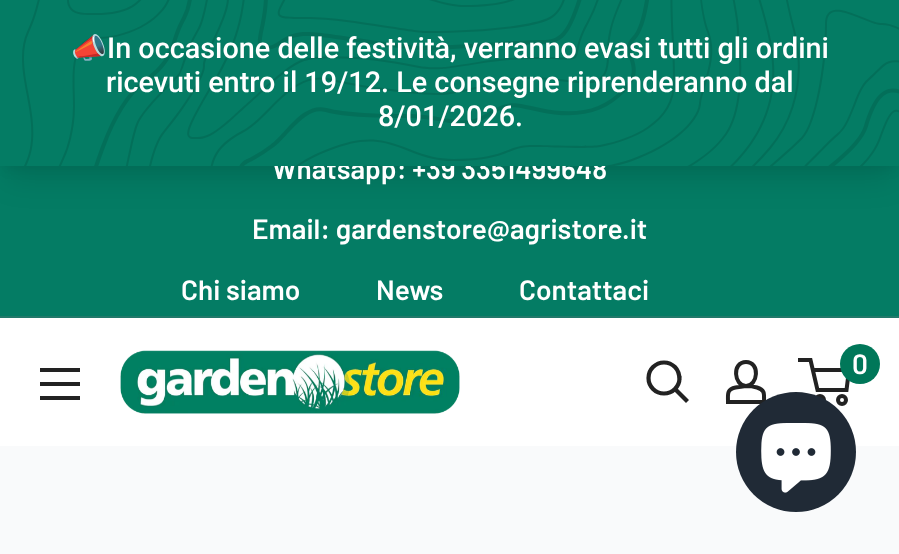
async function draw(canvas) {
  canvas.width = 899
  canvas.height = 554
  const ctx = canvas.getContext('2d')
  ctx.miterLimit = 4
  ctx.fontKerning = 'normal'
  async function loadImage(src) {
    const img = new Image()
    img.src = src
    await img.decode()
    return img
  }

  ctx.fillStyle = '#f9fafb'
  ctx.fillRect(0, 0, 899, 554)
  ctx.fillStyle = '#047c64'
  ctx.fillRect(0, 166, 899, 150)
  ctx.fillStyle = '#0000000d'
  ctx.filter = 'blur(6px)'
  ctx.beginPath()
  ctx.rect(4, 12, 892, 158)
  ctx.fill()
  ctx.filter = 'none'
  ctx.fillStyle = '#0000001a'
  ctx.filter = 'blur(15px)'
  ctx.beginPath()
  ctx.rect(6, 26, 888, 154)
  ctx.fill()
  ctx.filter = 'none'
  ctx.font = '600 28px Barlow'
  ctx.fillStyle = '#fff'
  ctx.fillText('Whatsapp: +39 3351499648', 272, 179)
  ctx.fillStyle = '#047c64'
  ctx.fillRect(0, 0, 899, 166)
  ctx.drawImage(await loadImage('image0.png'), 22, 0, 877, 166)
  ctx.font = '28.8px Noto Color Emoji'
  ctx.fillStyle = '#fff'
  ctx.fillText('📣', 71, 58)
  ctx.font = '500 28.8px Roboto'
  ctx.fillText('In occasione delle festività, verranno evasi tutti gli ordini', 107, 58)
  ctx.fillText('ricevuti entro il 19/12. Le consegne riprenderanno dal', 106, 92)
  ctx.fillText('8/01/2026.', 378, 126)
  ctx.fillStyle = '#22796a'
  ctx.fillRect(0, 316, 899, 2)
  ctx.font = '600 28px Barlow'
  ctx.fillStyle = '#fff'
  ctx.fillText('Email: gardenstore@agristore.it', 252, 239)
  ctx.fillText('Chi siamo', 181, 300)
  ctx.fillText('News', 376, 300)
  ctx.fillText('Contattaci', 519, 300)
  ctx.fillRect(0, 318, 899, 128)
  ctx.drawImage(await loadImage('image1.png'), 120, 350, 340, 64)
  ctx.beginPath()
  ctx.moveTo(686, 400)
  ctx.lineTo(675.5, 389.5)
  ctx.strokeStyle = '#222'
  ctx.lineWidth = 4.2
  ctx.lineCap = 'square'
  ctx.stroke()
  ctx.beginPath()
  ctx.arc(664, 378, 15.5, 0, 2 * Math.PI)
  ctx.stroke()
  ctx.beginPath()
  ctx.moveTo(746, 386)
  ctx.bezierCurveTo(750, 386, 753.5, 386.5, 757, 387.5)
  ctx.bezierCurveTo(765.5, 390, 764, 394.5, 764, 402)
  ctx.lineTo(728, 402)
  ctx.bezierCurveTo(728, 394, 726.5, 389.5, 735.5, 387.5)
  ctx.closePath()
  ctx.moveTo(746, 386)
  ctx.bezierCurveTo(734, 386, 731.5, 362, 746, 362)
  ctx.bezierCurveTo(760.5, 362, 758, 386, 746, 386)
  ctx.closePath()
  ctx.lineWidth = 4
  ctx.lineCap = 'butt'
  ctx.stroke()
  ctx.beginPath()
  ctx.arc(820, 400, 4, 0, 2 * Math.PI)
  ctx.stroke()
  ctx.beginPath()
  ctx.arc(842, 400, 4, 0, 2 * Math.PI)
  ctx.stroke()
  ctx.beginPath()
  ctx.moveTo(812.5, 370)
  ctx.lineTo(849, 370)
  ctx.lineTo(846.5, 390)
  ctx.lineTo(817.5, 390)
  ctx.lineTo(810.5, 360)
  ctx.lineTo(798, 360)
  ctx.stroke()
  ctx.fillStyle = '#007759'
  ctx.beginPath()
  ctx.arc(860, 364, 20, 0, 2 * Math.PI)
  ctx.fill()
  ctx.fillStyle = '#fff'
  ctx.fillText('0', 852, 374)
  ctx.fillStyle = '#222'
  ctx.beginPath()
  ctx.moveTo(40, 396)
  ctx.lineTo(80, 396)
  ctx.lineTo(80, 400)
  ctx.lineTo(40, 400)
  ctx.closePath()
  ctx.moveTo(40, 368)
  ctx.lineTo(80, 368)
  ctx.lineTo(80, 372)
  ctx.lineTo(40, 372)
  ctx.closePath()
  ctx.moveTo(40, 382)
  ctx.lineTo(80, 382)
  ctx.lineTo(80, 386)
  ctx.lineTo(40, 386)
  ctx.closePath()
  ctx.fill('evenodd')
  ctx.fillStyle = '#202a36'
  ctx.beginPath()
  ctx.arc(796, 452, 60, 0, 2 * Math.PI)
  ctx.fill()
  ctx.drawImage(await loadImage('image2.png'), 761, 423, 70, 70)
}

draw(document.querySelector('canvas'))
